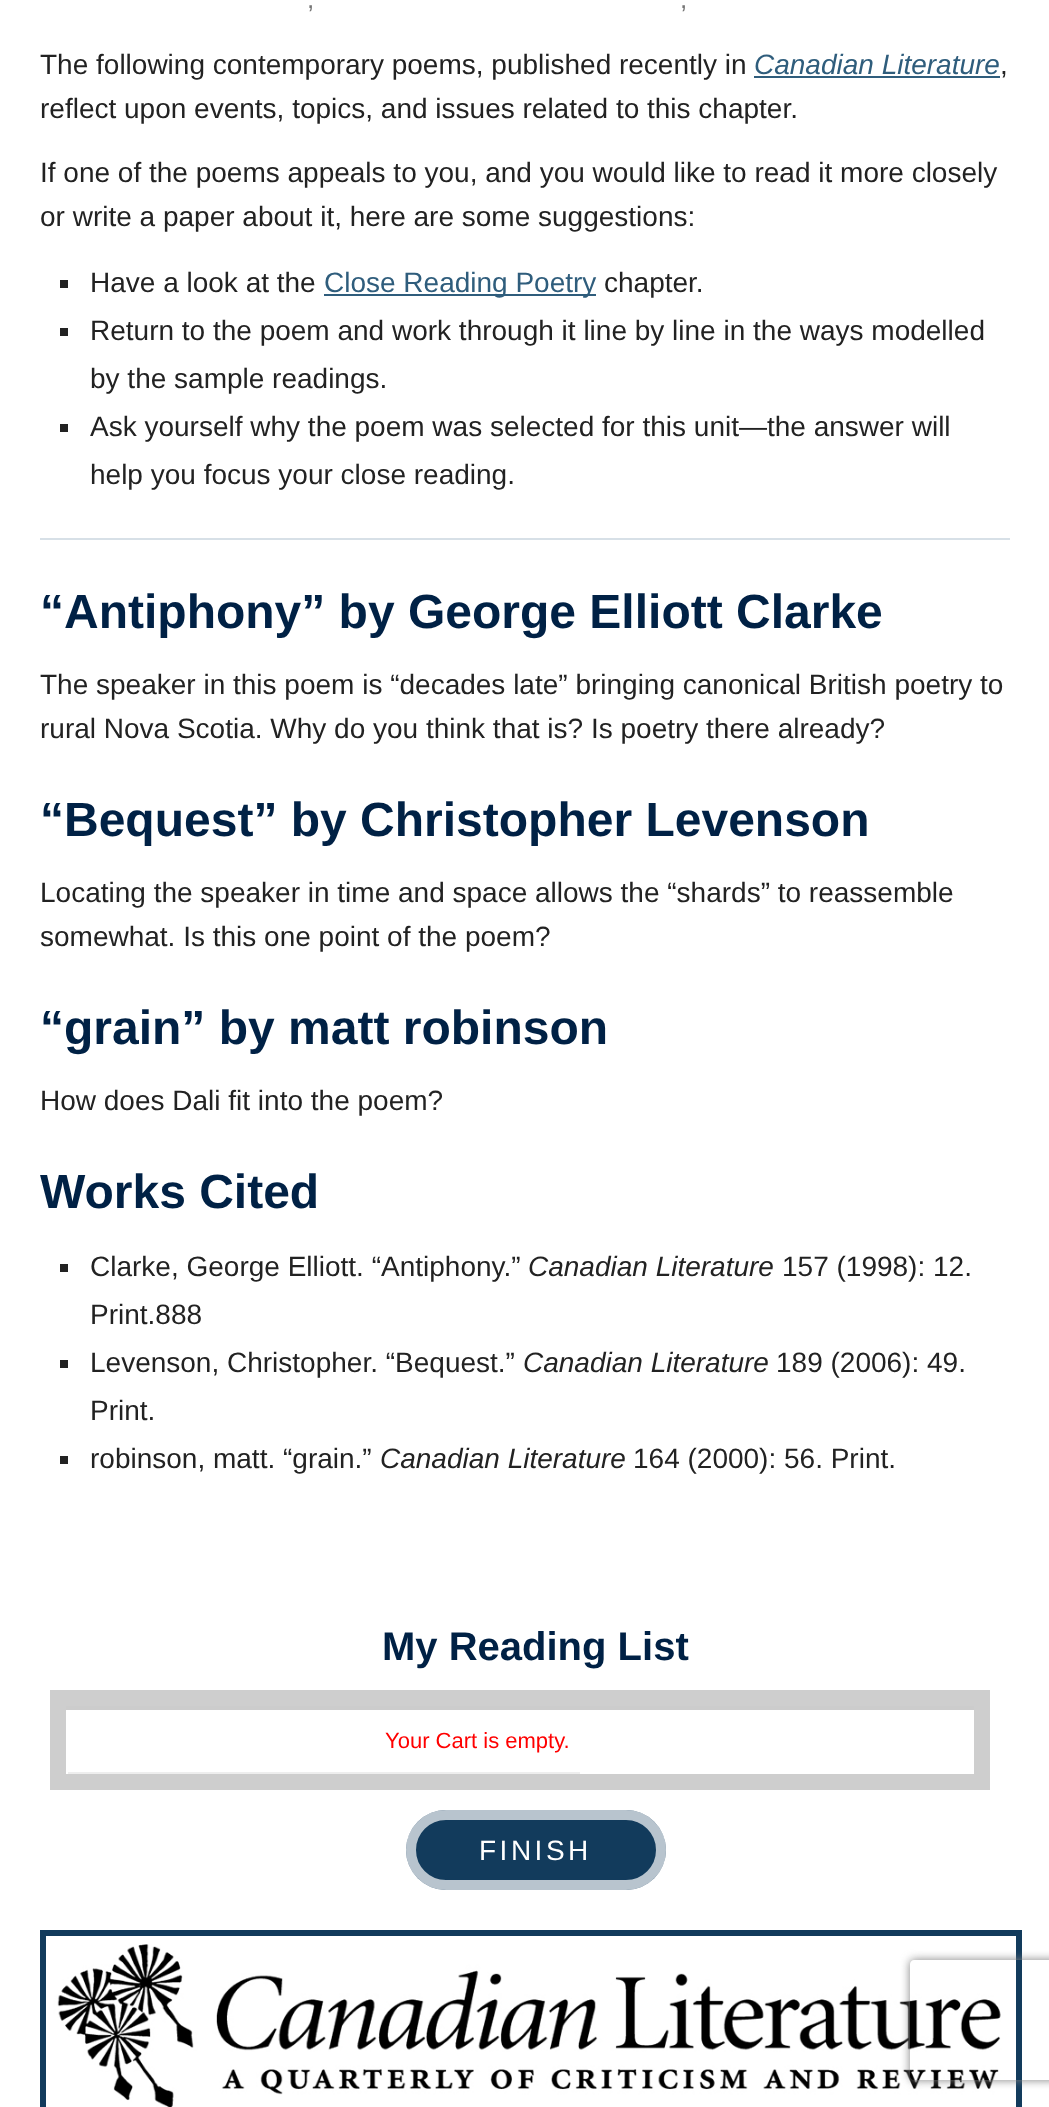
async function draw(canvas) {
  canvas.width = 1049
  canvas.height = 2107
  const ctx = canvas.getContext('2d')
  ctx.miterLimit = 4
  ctx.fontKerning = 'normal'
  async function loadImage(src) {
    const img = new Image()
    img.src = src
    await img.decode()
    return img
  }

  ctx.fillStyle = '#fff'
  ctx.fillRect(0, 0, 1049, 2107)
  ctx.font = '26px Liberation Sans'
  ctx.fillStyle = '#757575'
  ctx.fillText(',', 307, 8)
  ctx.fillText(',', 680, 8)
  ctx.font = '28px Liberation Sans'
  ctx.fillStyle = '#222'
  ctx.fillText('The following contemporary poems, published recently in', 40, 74)
  ctx.font = 'italic 28px Liberation Sans'
  ctx.fillStyle = '#2f5d7c'
  ctx.fillText('Canadian Literature', 754, 74)
  ctx.fillRect(754, 76, 246, 2)
  ctx.font = '28px Liberation Sans'
  ctx.fillStyle = '#222'
  ctx.fillText(',', 1000, 74)
  ctx.fillText('reflect upon events, topics, and issues related to this chapter.', 40, 118)
  ctx.fillText('If one of the poems appeals to you, and you would like to read it more closely', 40, 182)
  ctx.fillText('or write a paper about it, here are some suggestions:', 40, 226)
  ctx.fillRect(60, 280, 8, 8)
  ctx.fillText('Have a look at the', 90, 292)
  ctx.fillStyle = '#2f5d7c'
  ctx.fillRect(324, 294, 272, 2)
  ctx.fillText('Close Reading Poetry', 324, 292)
  ctx.fillStyle = '#222'
  ctx.fillText('chapter.', 604, 292)
  ctx.fillRect(60, 328, 8, 8)
  ctx.fillText('Return to the poem and work through it line by line in the ways modelled', 90, 340)
  ctx.fillText('by the sample readings.', 90, 388)
  ctx.fillRect(60, 424, 8, 8)
  ctx.fillText('Ask yourself why the poem was selected for this unit—the answer will', 90, 436)
  ctx.fillText('help you focus your close reading.', 90, 484)
  ctx.fillStyle = '#d7e0e7'
  ctx.fillRect(40, 538, 970, 2)
  ctx.font = 'bold 48px Liberation Sans'
  ctx.fillStyle = '#002145'
  ctx.fillText('“Antiphony” by George Elliott Clarke', 40, 628)
  ctx.font = '28px Liberation Sans'
  ctx.fillStyle = '#222'
  ctx.fillText('The speaker in this poem is “decades late” bringing canonical British poetry to', 40, 694)
  ctx.fillText('rural Nova Scotia. Why do you think that is? Is poetry there already?', 40, 738)
  ctx.font = 'bold 48px Liberation Sans'
  ctx.fillStyle = '#002145'
  ctx.fillText('“Bequest” by Christopher Levenson', 40, 836)
  ctx.font = '28px Liberation Sans'
  ctx.fillStyle = '#222'
  ctx.fillText('Locating the speaker in time and space allows the “shards” to reassemble', 40, 902)
  ctx.fillText('somewhat. Is this one point of the poem?', 40, 946)
  ctx.font = 'bold 48px Liberation Sans'
  ctx.fillStyle = '#002145'
  ctx.fillText('“grain” by matt robinson', 40, 1044)
  ctx.font = '28px Liberation Sans'
  ctx.fillStyle = '#222'
  ctx.fillText('How does Dali fit into the poem?', 40, 1110)
  ctx.font = 'bold 48px Liberation Sans'
  ctx.fillStyle = '#002145'
  ctx.fillText('Works Cited', 40, 1208)
  ctx.fillStyle = '#222'
  ctx.fillRect(60, 1264, 8, 8)
  ctx.font = '28px Liberation Sans'
  ctx.fillText('Clarke, George Elliott. “Antiphony.”', 90, 1276)
  ctx.font = 'italic 28px Liberation Sans'
  ctx.fillText('Canadian Literature', 528, 1276)
  ctx.font = '28px Liberation Sans'
  ctx.fillText('157 (1998): 12.', 782, 1276)
  ctx.fillText('Print.888', 90, 1324)
  ctx.fillRect(60, 1360, 8, 8)
  ctx.fillText('Levenson, Christopher. “Bequest.”', 90, 1372)
  ctx.font = 'italic 28px Liberation Sans'
  ctx.fillText('Canadian Literature', 523, 1372)
  ctx.font = '28px Liberation Sans'
  ctx.fillText('189 (2006): 49.', 776, 1372)
  ctx.fillText('Print.', 90, 1420)
  ctx.fillRect(60, 1456, 8, 8)
  ctx.fillText('robinson, matt. “grain.”', 90, 1468)
  ctx.font = 'italic 28px Liberation Sans'
  ctx.fillText('Canadian Literature', 380, 1468)
  ctx.font = '28px Liberation Sans'
  ctx.fillText('164 (2000): 56. Print.', 633, 1468)
  ctx.font = 'bold 40px Liberation Sans'
  ctx.fillStyle = '#002145'
  ctx.fillText('My Reading List', 382, 1660)
  ctx.strokeStyle = '#cecece'
  ctx.lineWidth = 16
  ctx.strokeRect(58, 1698, 924, 84)
  ctx.fillStyle = '#ccc'
  ctx.fillRect(66, 1706, 908, 4)
  ctx.fillStyle = '#eee'
  ctx.fillRect(68, 1772, 512, 2)
  ctx.font = '22px Liberation Sans'
  ctx.fillStyle = '#f00'
  ctx.fillText('Your Cart is empty.', 385, 1748)
  ctx.fillStyle = '#123b5c'
  ctx.beginPath()
  ctx.roundRect(406, 1810, 260, 80, 40)
  ctx.fill()
  ctx.beginPath()
  ctx.roundRect(411, 1815, 250, 70, 35)
  ctx.strokeStyle = '#ffffffb3'
  ctx.lineWidth = 10
  ctx.stroke()
  ctx.letterSpacing = '3.5px'
  ctx.font = '28px Liberation Sans'
  ctx.fillStyle = '#fff'
  ctx.fillText('FINISH', 479, 1860)
  ctx.fillStyle = '#123b5c'
  ctx.fillRect(40, 1930, 982, 177)
  ctx.drawImage(await loadImage('image0.png'), 46, 1936, 970, 171)
  ctx.save()
  ctx.beginPath()
  ctx.moveTo(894, 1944)
  ctx.lineTo(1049, 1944)
  ctx.lineTo(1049, 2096)
  ctx.lineTo(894, 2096)
  ctx.closePath()
  ctx.moveTo(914, 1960)
  ctx.lineTo(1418, 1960)
  ctx.bezierCurveTo(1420, 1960, 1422, 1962, 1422, 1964)
  ctx.lineTo(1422, 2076)
  ctx.bezierCurveTo(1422, 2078, 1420, 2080, 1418, 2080)
  ctx.lineTo(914, 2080)
  ctx.bezierCurveTo(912, 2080, 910, 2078, 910, 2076)
  ctx.lineTo(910, 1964)
  ctx.bezierCurveTo(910, 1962, 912, 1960, 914, 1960)
  ctx.closePath()
  ctx.clip('evenodd')
  ctx.fillStyle = '#808080'
  ctx.filter = 'blur(5px)'
  ctx.beginPath()
  ctx.roundRect(910, 1960, 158, 120, 4)
  ctx.fill()
  ctx.filter = 'none'
  ctx.restore()
}

draw(document.querySelector('canvas'))
